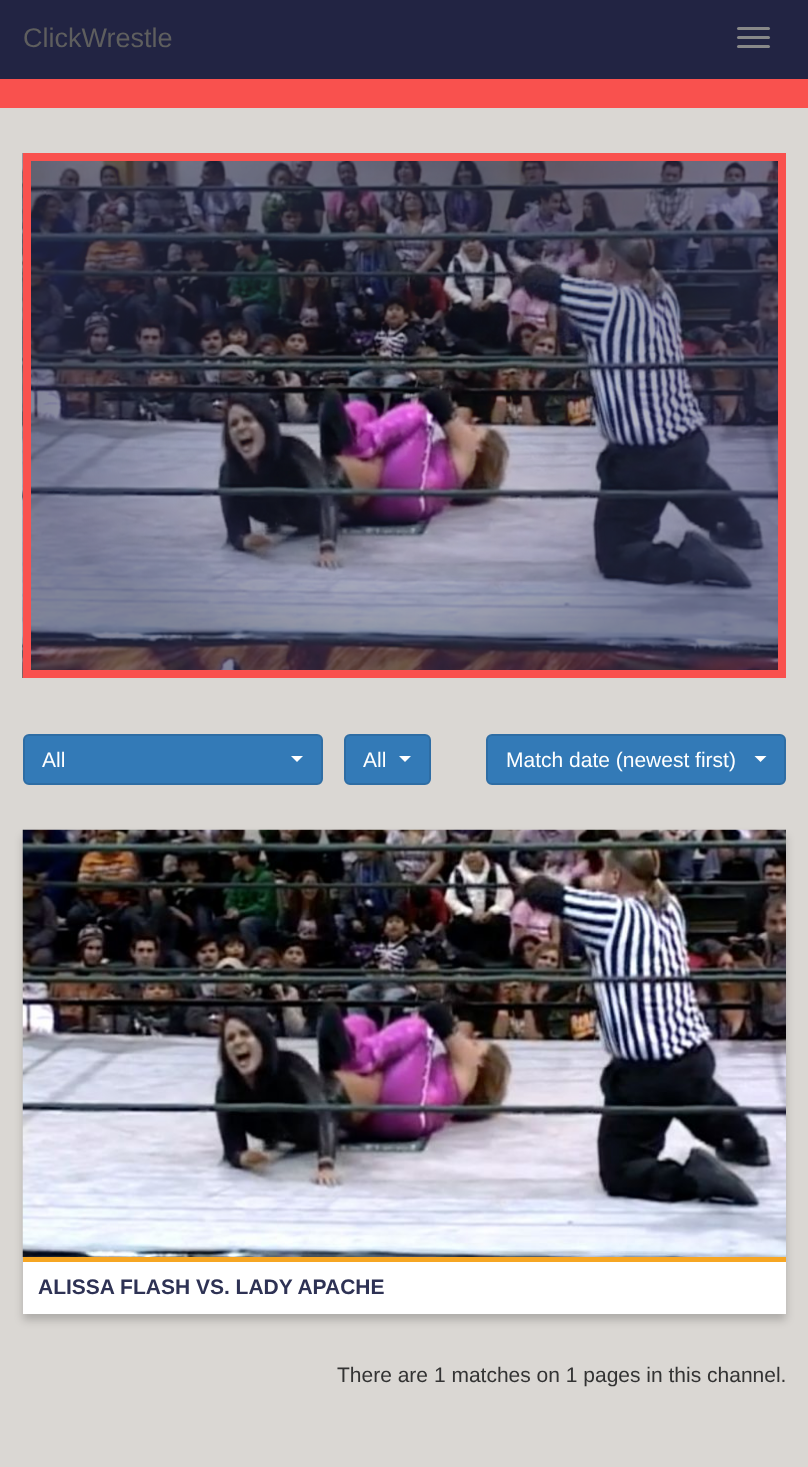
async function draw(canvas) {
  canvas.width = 808
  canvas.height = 1467
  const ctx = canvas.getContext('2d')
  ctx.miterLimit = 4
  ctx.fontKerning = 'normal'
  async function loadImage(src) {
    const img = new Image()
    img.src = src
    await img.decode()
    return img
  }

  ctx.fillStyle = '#dad7d3'
  ctx.fillRect(0, 0, 808, 1467)
  ctx.fillStyle = '#222443'
  ctx.fillRect(0, 0, 808, 79)
  ctx.font = '27px Liberation Sans'
  ctx.fillStyle = '#5e5e5e'
  ctx.fillText('ClickWrestle', 23, 47)
  ctx.fillStyle = '#888'
  ctx.beginPath()
  ctx.roundRect(737, 27, 33, 3, 1.5)
  ctx.fill()
  ctx.beginPath()
  ctx.roundRect(737, 36, 33, 3, 1.5)
  ctx.fill()
  ctx.beginPath()
  ctx.roundRect(737, 45, 33, 3, 1.5)
  ctx.fill()
  ctx.fillStyle = '#f9514e'
  ctx.fillRect(0, 79, 808, 29)
  ctx.drawImage(await loadImage('image0.png'), 22, 153, 756, 525)
  ctx.strokeStyle = '#f9514e'
  ctx.lineWidth = 8
  ctx.strokeRect(27, 157, 755, 517)
  ctx.fillStyle = '#337ab7'
  ctx.beginPath()
  ctx.roundRect(24, 735, 298, 49, 5)
  ctx.fill()
  ctx.strokeStyle = '#2e6da4'
  ctx.lineWidth = 2
  ctx.stroke()
  ctx.font = '21px Liberation Sans'
  ctx.fillStyle = '#fff'
  ctx.fillText('All', 42, 767)
  ctx.beginPath()
  ctx.moveTo(291, 756)
  ctx.lineTo(303, 756)
  ctx.lineTo(297, 762)
  ctx.closePath()
  ctx.fill()
  ctx.fillStyle = '#337ab7'
  ctx.beginPath()
  ctx.roundRect(345, 735, 85, 49, 5)
  ctx.fill()
  ctx.stroke()
  ctx.fillStyle = '#fff'
  ctx.fillText('All', 363, 767)
  ctx.beginPath()
  ctx.moveTo(399, 756)
  ctx.lineTo(411, 756)
  ctx.lineTo(405, 762)
  ctx.closePath()
  ctx.fill()
  ctx.fillStyle = '#337ab7'
  ctx.beginPath()
  ctx.roundRect(487, 735, 298, 49, 5)
  ctx.fill()
  ctx.stroke()
  ctx.fillStyle = '#fff'
  ctx.fillText('Match date (newest first)', 506, 767)
  ctx.beginPath()
  ctx.moveTo(754.5, 756)
  ctx.lineTo(766.5, 756)
  ctx.lineTo(760.5, 762)
  ctx.closePath()
  ctx.fill()
  ctx.fillStyle = '#00000033'
  ctx.filter = 'blur(4.5px)'
  ctx.beginPath()
  ctx.rect(23, 836, 763, 484)
  ctx.fill()
  ctx.filter = 'none'
  ctx.fillStyle = '#fff'
  ctx.fillRect(23, 1262, 763, 52)
  ctx.drawImage(await loadImage('image1.png'), 22, 829, 764, 428)
  ctx.fillStyle = '#f6a623'
  ctx.fillRect(23, 1257, 763, 5)
  ctx.font = 'bold 21px Liberation Sans'
  ctx.fillStyle = '#2e3254'
  ctx.fillText('ALISSA FLASH VS. LADY APACHE', 38, 1294)
  ctx.font = '21px Liberation Sans'
  ctx.fillStyle = '#333'
  ctx.fillText('There are 1 matches on 1 pages in this channel.', 337, 1382)
}

draw(document.querySelector('canvas'))
